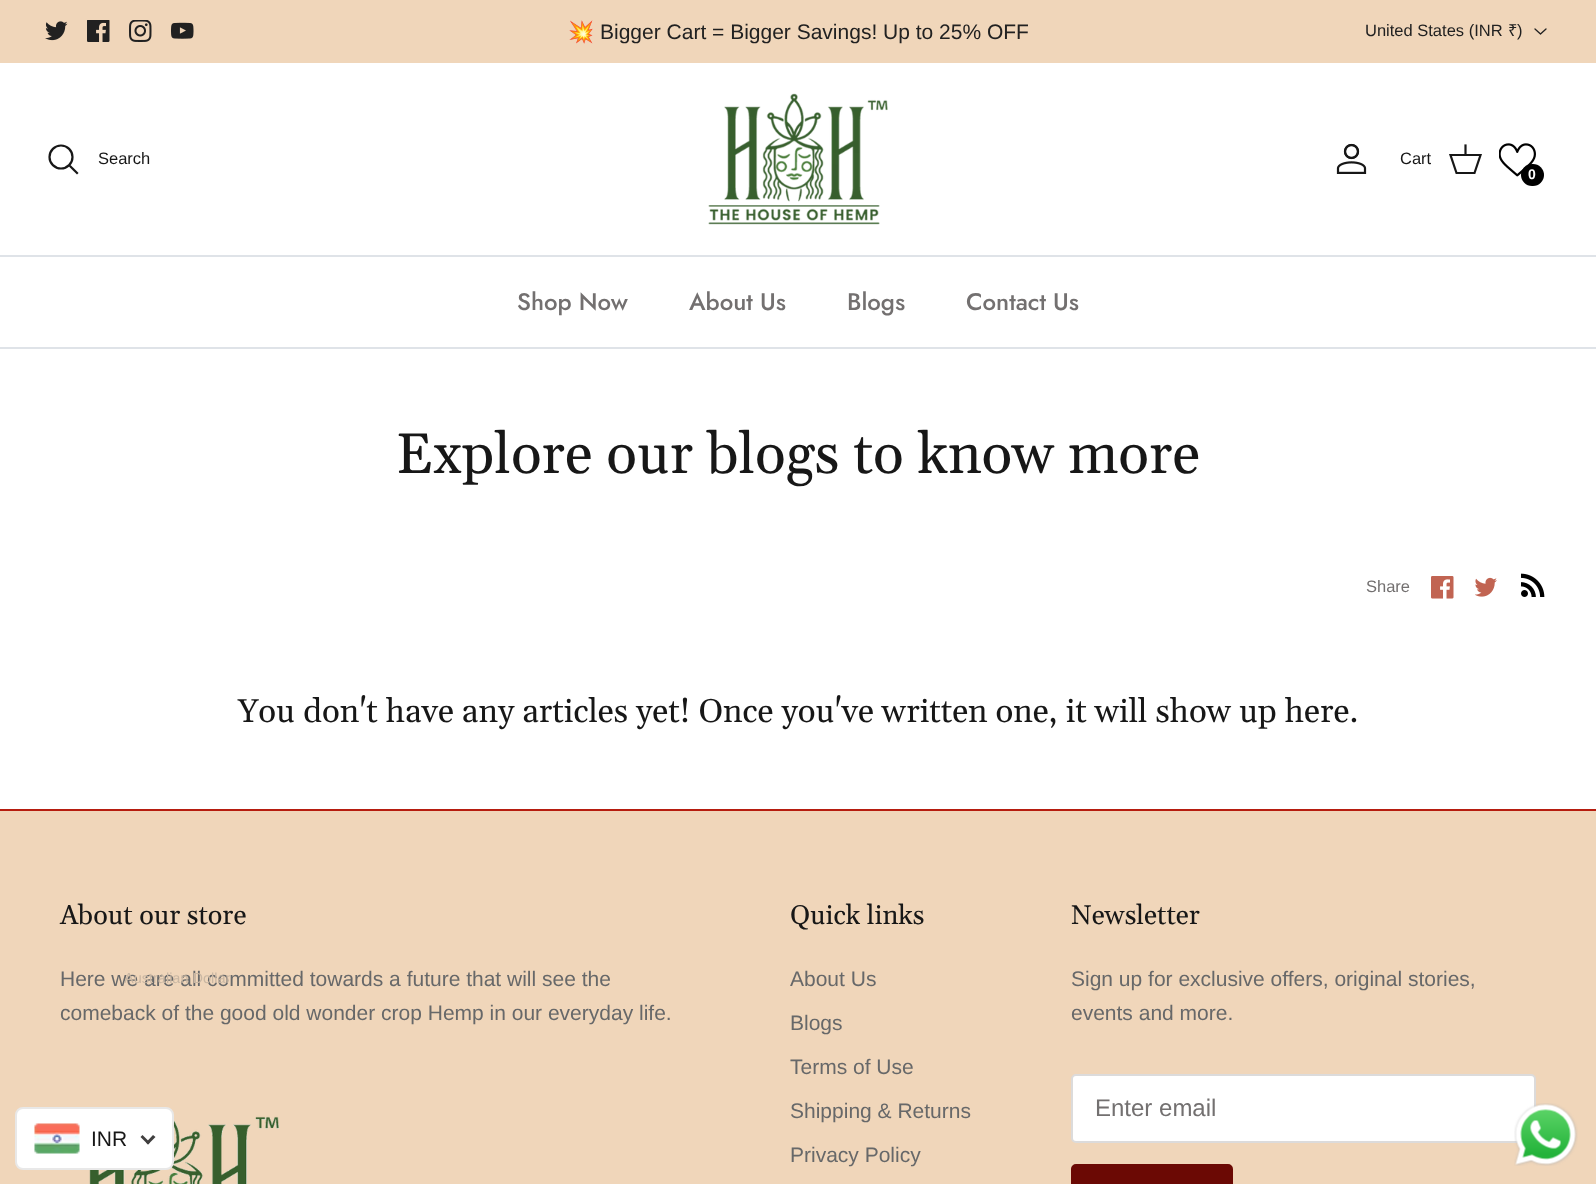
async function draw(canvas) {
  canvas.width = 1596
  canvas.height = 1184
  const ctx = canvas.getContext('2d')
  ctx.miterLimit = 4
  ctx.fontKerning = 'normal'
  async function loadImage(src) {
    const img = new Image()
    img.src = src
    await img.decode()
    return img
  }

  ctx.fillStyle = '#fff'
  ctx.fillRect(0, 0, 1596, 1184)
  ctx.fillStyle = '#f0d6ba'
  ctx.fillRect(0, 0, 1596, 63)
  ctx.drawImage(await loadImage('image0.png'), 45, 21, 23, 20)
  ctx.drawImage(await loadImage('image1.png'), 87, 20, 23, 22)
  ctx.drawImage(await loadImage('image2.png'), 129, 20, 23, 22)
  ctx.drawImage(await loadImage('image3.png'), 171, 22, 23, 17)
  ctx.font = '21px Noto Color Emoji'
  ctx.fillStyle = '#212121'
  ctx.fillText('💥', 568, 39)
  ctx.font = '21px Liberation Sans'
  ctx.fillText('Bigger Cart = Bigger Savings! Up to 25% OFF', 600, 39)
  ctx.font = '16.5px Liberation Sans'
  ctx.fillText('United States (INR', 1365, 36)
  ctx.font = '16.5px Noto Sans'
  ctx.fillText('₹', 1508, 36)
  ctx.font = '16.5px Liberation Sans'
  ctx.fillText(')', 1517, 36)
  ctx.beginPath()
  ctx.moveTo(1535, 29)
  ctx.lineTo(1540.5, 34)
  ctx.lineTo(1546, 29)
  ctx.strokeStyle = '#212121'
  ctx.lineWidth = 1.3
  ctx.lineCap = 'round'
  ctx.lineJoin = 'round'
  ctx.stroke()
  ctx.fillStyle = '#dfe3e8'
  ctx.fillRect(0, 255, 1596, 2)
  ctx.beginPath()
  ctx.arc(61, 157, 11.5, 0, 2 * Math.PI)
  ctx.strokeStyle = '#171717'
  ctx.lineWidth = 2.2
  ctx.stroke()
  ctx.fillStyle = '#171717'
  ctx.fillText('Search', 98, 164)
  ctx.beginPath()
  ctx.moveTo(70.5, 166.5)
  ctx.lineTo(77, 173)
  ctx.lineCap = 'square'
  ctx.lineJoin = 'miter'
  ctx.stroke()
  ctx.drawImage(await loadImage('image4.png'), 708, 93, 180, 132)
  ctx.drawImage(await loadImage('image5.png'), 1336, 143, 31, 31)
  ctx.beginPath()
  ctx.moveTo(1450.5, 155)
  ctx.lineTo(1480.5, 155)
  ctx.lineTo(1474.5, 173)
  ctx.lineTo(1456.5, 173)
  ctx.closePath()
  ctx.lineCap = 'butt'
  ctx.stroke()
  ctx.beginPath()
  ctx.moveTo(1465.5, 154.5)
  ctx.lineTo(1465.5, 145.5)
  ctx.lineCap = 'square'
  ctx.stroke()
  ctx.fillText('Cart', 1400, 164)
  ctx.drawImage(await loadImage('image6.png'), 1499, 143, 37, 34)
  ctx.fillStyle = '#000'
  ctx.beginPath()
  ctx.roundRect(1521, 164, 23, 22, 11)
  ctx.fill()
  ctx.font = 'bold 14px Liberation Sans'
  ctx.fillStyle = '#fff'
  ctx.fillText('0', 1528, 179)
  ctx.fillStyle = '#dfe3e8'
  ctx.fillRect(0, 347, 1596, 2)
  ctx.font = '500 24px Jost'
  ctx.fillStyle = '#737070'
  ctx.fillText('Shop Now', 517, 310)
  ctx.fillText('About Us', 689, 310)
  ctx.fillText('Blogs', 847, 310)
  ctx.fillText('Contact Us', 966, 310)
  ctx.font = '57px Gelasio'
  ctx.fillStyle = '#171717'
  ctx.fillText('Explore our blogs to know more', 396, 473)
  ctx.font = '16.5px Liberation Sans'
  ctx.fillStyle = '#737070'
  ctx.fillText('Share', 1366, 592)
  ctx.drawImage(await loadImage('image7.png'), 1431, 576, 23, 23)
  ctx.drawImage(await loadImage('image8.png'), 1475, 577, 22, 20)
  ctx.drawImage(await loadImage('image9.png'), 1521, 573, 24, 24)
  ctx.font = '33px Gelasio'
  ctx.fillStyle = '#171717'
  ctx.fillText('You don\'t have any articles yet! Once you\'ve written one, it will show up here.', 238, 722)
  ctx.fillStyle = '#f0d6ba'
  ctx.fillRect(0, 811, 1596, 373)
  ctx.fillStyle = '#b61d0f'
  ctx.fillRect(0, 809, 1596, 2)
  ctx.font = '27px Gelasio'
  ctx.fillStyle = '#171717'
  ctx.fillText('About our store', 60, 924)
  ctx.font = '21px Liberation Sans'
  ctx.fillStyle = '#676869'
  ctx.fillText('Here we are all committed towards a future that will see the', 60, 986)
  ctx.fillText('comeback of the good old wonder crop Hemp in our everyday life.', 60, 1020)
  ctx.drawImage(await loadImage('image10.png'), 89, 1108, 190, 76)
  ctx.font = '27px Gelasio'
  ctx.fillStyle = '#171717'
  ctx.fillText('Quick links', 790, 924)
  ctx.font = '21px Liberation Sans'
  ctx.fillStyle = '#676869'
  ctx.fillText('About Us', 790, 986)
  ctx.fillText('Blogs', 790, 1030)
  ctx.fillText('Terms of Use', 790, 1074)
  ctx.fillText('Shipping & Returns', 790, 1118)
  ctx.fillText('Privacy Policy', 790, 1162)
  ctx.font = '27px Gelasio'
  ctx.fillStyle = '#171717'
  ctx.fillText('Newsletter', 1071, 924)
  ctx.font = '21px Liberation Sans'
  ctx.fillStyle = '#676869'
  ctx.fillText('Sign up for exclusive offers, original stories,', 1071, 986)
  ctx.fillText('events and more.', 1071, 1020)
  ctx.fillStyle = '#fff'
  ctx.beginPath()
  ctx.roundRect(1072, 1075, 463, 67, 4)
  ctx.fill()
  ctx.strokeStyle = '#dcdbdb'
  ctx.lineWidth = 2
  ctx.stroke()
  ctx.font = '24px Liberation Sans'
  ctx.fillStyle = '#737070'
  ctx.fillText('Enter email', 1095, 1116)
  ctx.fillStyle = '#6b0904'
  ctx.beginPath()
  ctx.roundRect(1072, 1165, 160, 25, 4)
  ctx.fill()
  ctx.strokeStyle = '#6b0904'
  ctx.stroke()
  ctx.fillStyle = '#fff'
  ctx.beginPath()
  ctx.roundRect(16, 1108, 157, 61, 7)
  ctx.fill()
  ctx.strokeStyle = '#e8e8e8'
  ctx.stroke()
  ctx.font = '14.5px Liberation Sans'
  ctx.fillStyle = '#c9b7a3'
  ctx.fillText('Australian Dollar', 124, 983)
  ctx.drawImage(await loadImage('image11.png'), 34, 1123, 46, 31)
  ctx.font = '21px Liberation Sans'
  ctx.fillStyle = '#171717'
  ctx.fillText('INR', 91, 1146)
  ctx.fillStyle = '#403f3f'
  ctx.beginPath()
  ctx.moveTo(153, 1135)
  ctx.lineTo(155.5, 1137)
  ctx.lineTo(148, 1144.5)
  ctx.lineTo(146, 1142.5)
  ctx.closePath()
  ctx.fill()
  ctx.beginPath()
  ctx.moveTo(142.5, 1135)
  ctx.lineTo(150, 1142.5)
  ctx.lineTo(148, 1144.5)
  ctx.lineTo(140.5, 1137)
  ctx.closePath()
  ctx.fill()
  ctx.drawImage(await loadImage('image12.png'), 1514, 1103, 64, 63)
}

draw(document.querySelector('canvas'))
